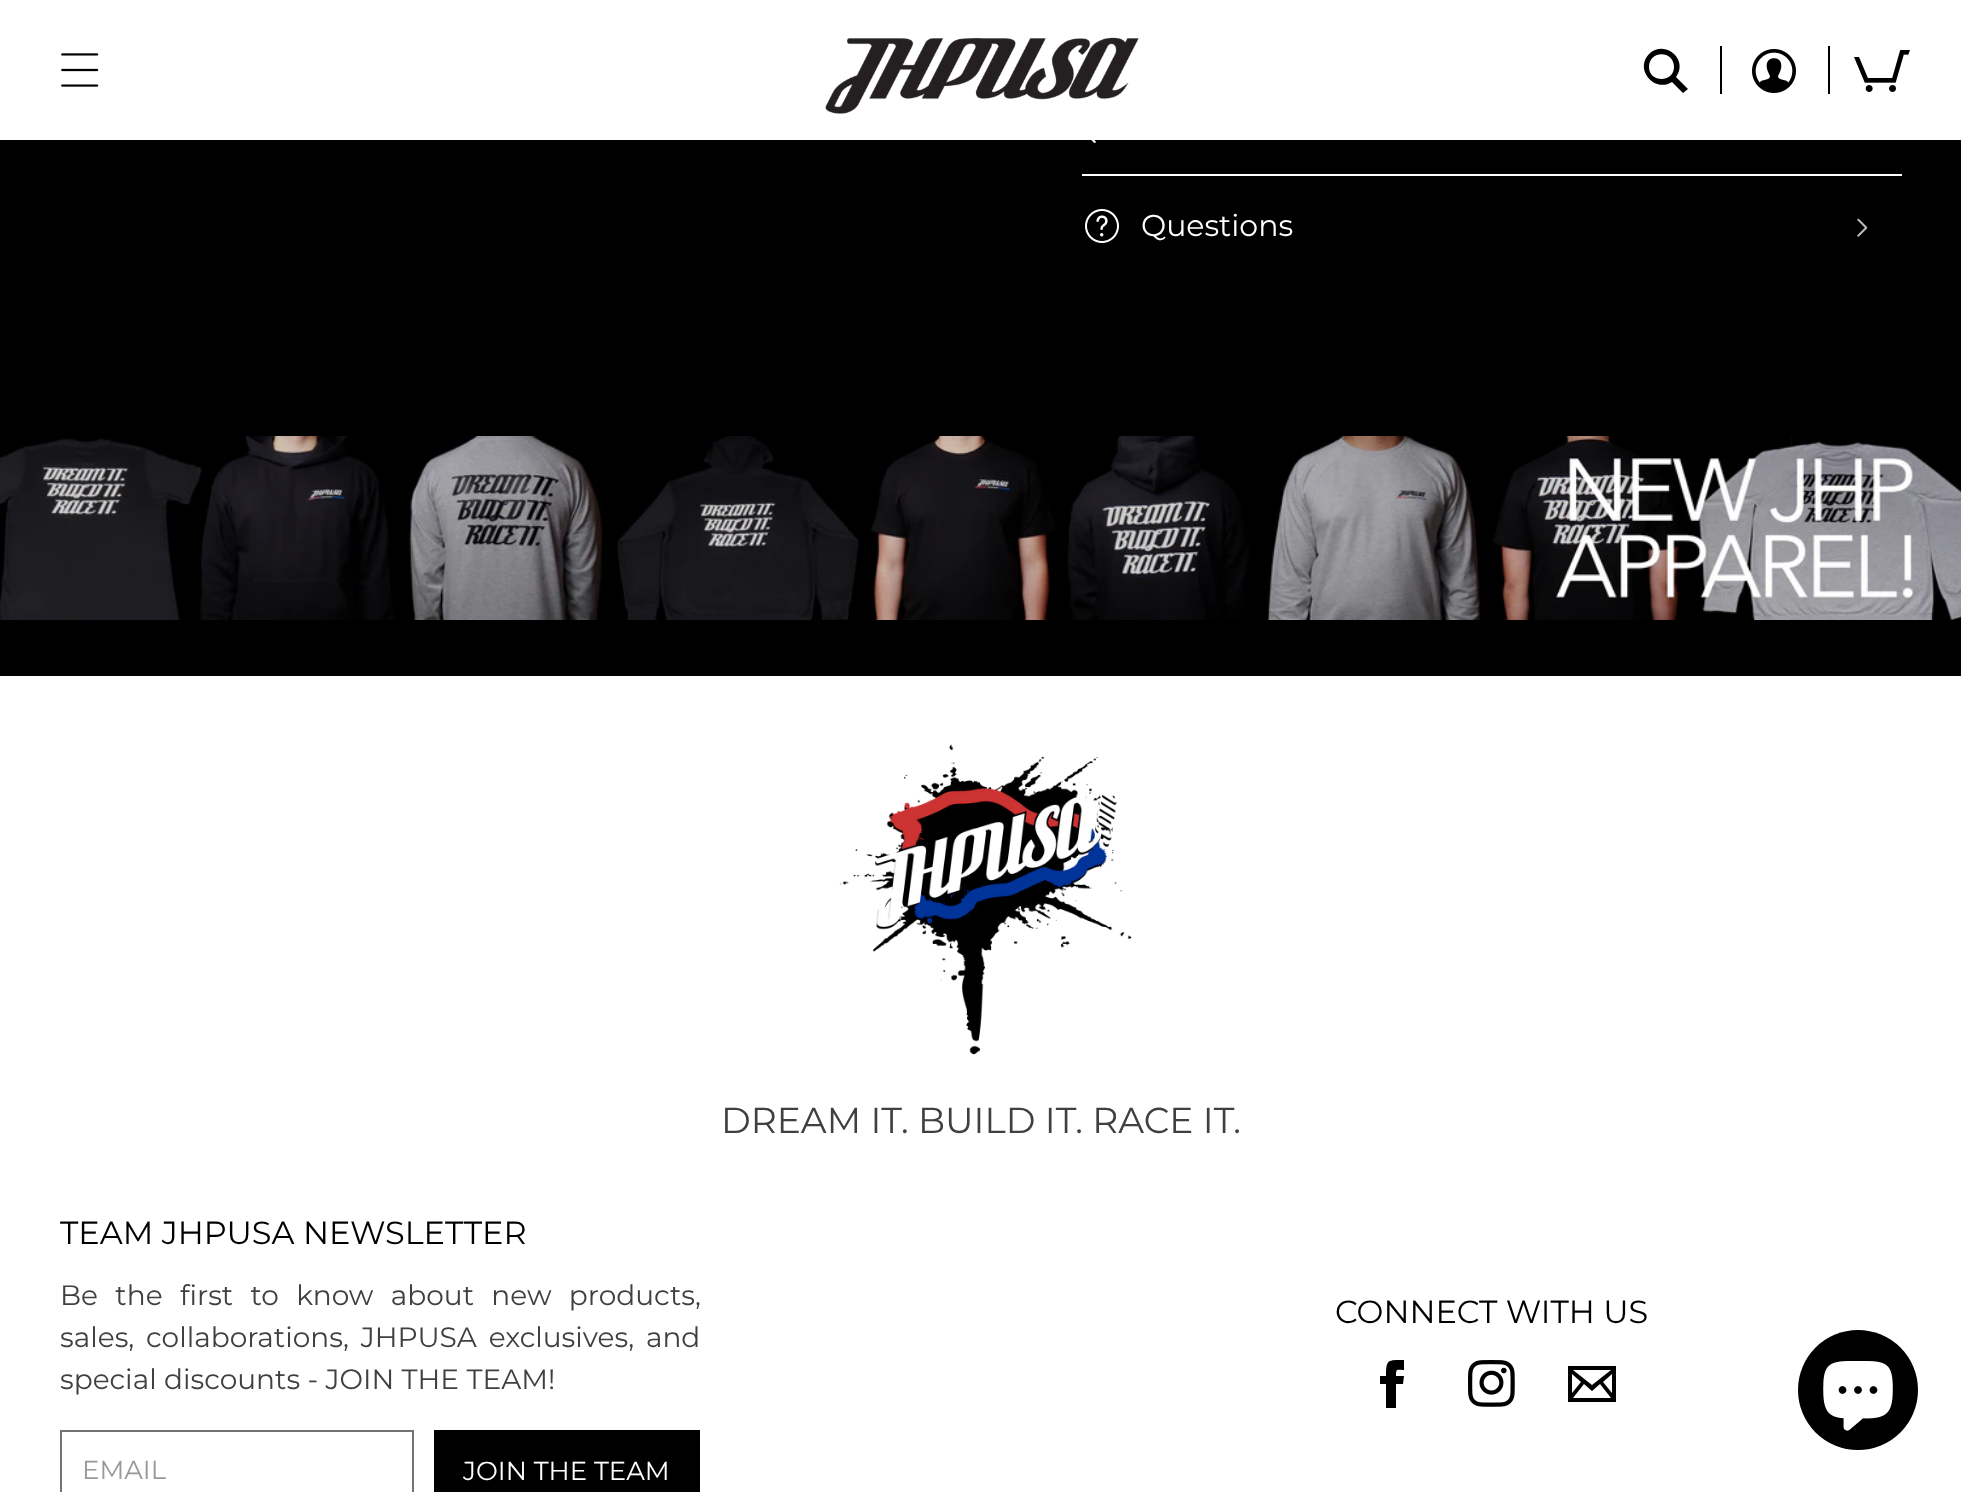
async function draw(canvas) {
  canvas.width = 1961
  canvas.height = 1492
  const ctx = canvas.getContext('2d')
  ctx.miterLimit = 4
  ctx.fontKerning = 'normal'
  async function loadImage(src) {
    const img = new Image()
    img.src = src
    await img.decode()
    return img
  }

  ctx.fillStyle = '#000'
  ctx.fillRect(0, 0, 1961, 1492)
  ctx.fillStyle = '#fff'
  ctx.fillRect(0, 0, 1961, 140)
  ctx.drawImage(await loadImage('image0.png'), 61, 53, 38, 34)
  ctx.drawImage(await loadImage('image1.png'), 825, 37, 314, 77)
  ctx.fillStyle = '#000'
  ctx.beginPath()
  ctx.moveTo(1688, 89)
  ctx.lineTo(1676, 77)
  ctx.bezierCurveTo(1689, 60, 1665, 39, 1649, 54)
  ctx.bezierCurveTo(1634, 70, 1655, 93, 1672, 82)
  ctx.lineTo(1683, 93)
  ctx.closePath()
  ctx.moveTo(1649, 67)
  ctx.bezierCurveTo(1649, 50, 1674, 50, 1674, 67)
  ctx.bezierCurveTo(1674, 83, 1649, 83, 1649, 67)
  ctx.closePath()
  ctx.fill()
  ctx.fillRect(1720, 46, 2, 48)
  ctx.drawImage(await loadImage('image2.png'), 1752, 49, 44, 44)
  ctx.fillRect(1828, 46, 2, 48)
  ctx.drawImage(await loadImage('image3.png'), 1854, 50, 56, 42)
  ctx.fillStyle = '#fff'
  ctx.fillRect(1082, 174, 820, 2)
  ctx.drawImage(await loadImage('image4.png'), 1091, 140, 5, 3)
  ctx.drawImage(await loadImage('image5.png'), 1085, 209, 34, 34)
  ctx.font = '30px Montserrat'
  ctx.fillText('Questions', 1141, 236)
  ctx.drawImage(await loadImage('image6.png'), 1857, 218, 11, 19)
  ctx.drawImage(await loadImage('image7.png'), 0, 436, 1961, 184)
  ctx.fillRect(0, 676, 1961, 816)
  ctx.drawImage(await loadImage('image8.png'), 839, 744, 293, 311)
  ctx.font = '36px Montserrat'
  ctx.fillStyle = '#404040'
  ctx.fillText('DREAM IT. BUILD IT. RACE IT.', 721, 1133)
  ctx.font = '32px Montserrat'
  ctx.fillStyle = '#000'
  ctx.fillText('TEAM JHPUSA NEWSLETTER', 60, 1244)
  ctx.wordSpacing = '10px'
  ctx.font = '28px Montserrat'
  ctx.fillStyle = '#404040'
  ctx.fillText('Be the first to know about new products,', 60, 1305)
  ctx.wordSpacing = '4.5px'
  ctx.fillText('sales, collaborations, JHPUSA exclusives, and', 60, 1347)
  ctx.wordSpacing = '0px'
  ctx.fillText('special discounts - JOIN THE TEAM!', 60, 1389)
  ctx.strokeStyle = '#737373'
  ctx.lineWidth = 2
  ctx.strokeRect(61, 1431, 352, 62)
  ctx.font = '26px Montserrat'
  ctx.fillStyle = '#999'
  ctx.fillText('EMAIL', 82, 1479)
  ctx.fillStyle = '#000'
  ctx.fillRect(434, 1430, 266, 62)
  ctx.fillStyle = '#fff'
  ctx.fillText('JOIN THE TEAM', 463, 1480)
  ctx.font = '32px Montserrat'
  ctx.fillStyle = '#000'
  ctx.fillText('CONNECT WITH US', 1335, 1323)
  ctx.beginPath()
  ctx.moveTo(1386, 1376)
  ctx.lineTo(1380, 1376)
  ctx.lineTo(1380, 1384)
  ctx.lineTo(1386, 1384)
  ctx.lineTo(1386, 1408)
  ctx.lineTo(1396, 1408)
  ctx.lineTo(1396, 1384)
  ctx.lineTo(1403, 1384)
  ctx.lineTo(1404, 1376)
  ctx.lineTo(1396, 1376)
  ctx.bezierCurveTo(1396, 1368, 1397, 1370, 1404, 1370)
  ctx.lineTo(1404, 1360)
  ctx.bezierCurveTo(1388, 1360, 1386, 1359, 1386, 1376)
  ctx.closePath()
  ctx.fill()
  ctx.drawImage(await loadImage('image9.png'), 1468, 1360, 47, 47)
  ctx.beginPath()
  ctx.moveTo(1568, 1366)
  ctx.lineTo(1568, 1402)
  ctx.lineTo(1616, 1402)
  ctx.lineTo(1616, 1366)
  ctx.closePath()
  ctx.moveTo(1581, 1382)
  ctx.lineTo(1572, 1393)
  ctx.lineTo(1572, 1374)
  ctx.closePath()
  ctx.moveTo(1573, 1370)
  ctx.lineTo(1611, 1370)
  ctx.lineTo(1592, 1385)
  ctx.closePath()
  ctx.moveTo(1584, 1384)
  ctx.lineTo(1592, 1391)
  ctx.lineTo(1600, 1384)
  ctx.lineTo(1611, 1398)
  ctx.lineTo(1573, 1398)
  ctx.closePath()
  ctx.moveTo(1603, 1382)
  ctx.lineTo(1612, 1374)
  ctx.lineTo(1612, 1393)
  ctx.closePath()
  ctx.fill()
  ctx.beginPath()
  ctx.arc(1858, 1390, 60, 0, 2 * Math.PI)
  ctx.fill()
  ctx.drawImage(await loadImage('image10.png'), 1823, 1361, 70, 70)
}

draw(document.querySelector('canvas'))
